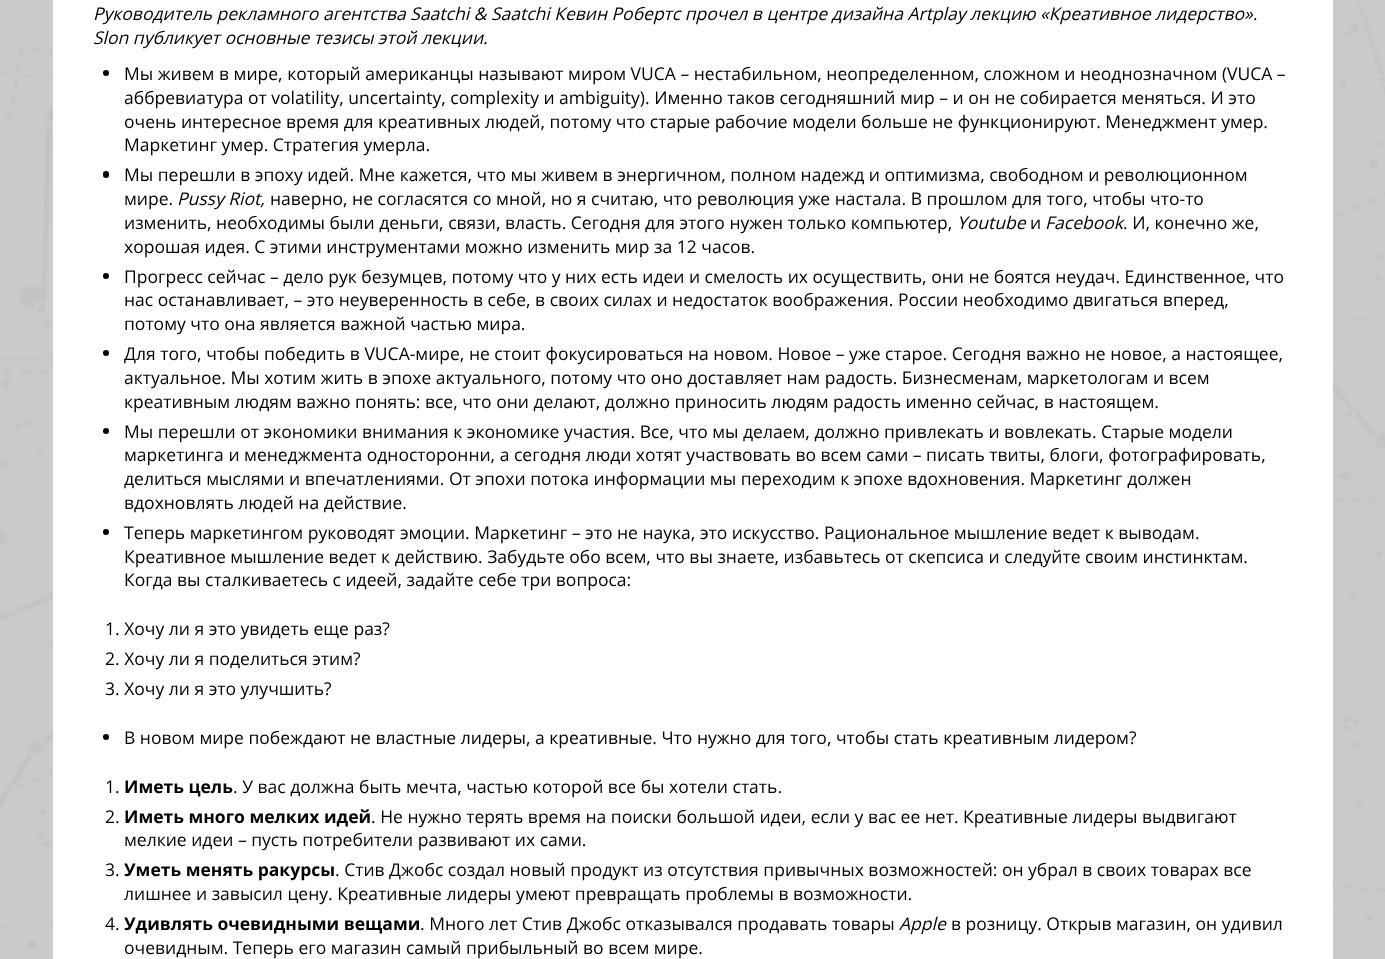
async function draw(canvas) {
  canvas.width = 1385
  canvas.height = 959
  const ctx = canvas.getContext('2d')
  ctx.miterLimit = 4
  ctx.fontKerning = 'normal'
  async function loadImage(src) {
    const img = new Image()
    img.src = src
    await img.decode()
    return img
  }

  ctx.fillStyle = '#cacacb'
  ctx.fillRect(0, 0, 1385, 959)
  ctx.drawImage(await loadImage('image0.png'), 0, 0, 1385, 950)
  ctx.fillStyle = '#fff'
  ctx.fillRect(53, 0, 1280, 959)
  ctx.font = 'italic 17.5px Open Sans'
  ctx.fillStyle = '#000'
  ctx.fillText('Руководитель рекламного агентства Saatchi & Saatchi Кевин Робертс прочел в центре дизайна Artplay лекцию «Креативное лидерство».', 93, 20)
  ctx.fillText('Slon публикует основные тезисы этой лекции.', 93, 44)
  ctx.beginPath()
  ctx.arc(106, 73, 3, 0, 2 * Math.PI)
  ctx.fill()
  ctx.font = '17.5px Open Sans'
  ctx.fillText('Мы живем в мире, который американцы называют миром VUCA – нестабильном, неопределенном, сложном и неоднозначном (VUCA –', 124, 80)
  ctx.fillText('аббревиатура от volatility, uncertainty, complexity и ambiguity). Именно таков сегодняшний мир – и он не собирается меняться. И это', 124, 104)
  ctx.fillText('очень интересное время для креативных людей, потому что старые рабочие модели больше не функционируют. Менеджмент умер.', 124, 128)
  ctx.fillText('Маркетинг умер. Стратегия умерла.', 124, 151)
  ctx.beginPath()
  ctx.roundRect(103, 171, 6, 7, 3)
  ctx.fill()
  ctx.fillText('Мы перешли в эпоху идей. Мне кажется, что мы живем в энергичном, полном надежд и оптимизма, свободном и революционном', 124, 181)
  ctx.fillText('мире.', 124, 205)
  ctx.font = 'italic 17.5px Open Sans'
  ctx.fillText('Pussy Riot,', 177, 205)
  ctx.font = '17.5px Open Sans'
  ctx.fillText('наверно, не согласятся со мной, но я считаю, что революция уже настала. В прошлом для того, чтобы что-то', 270, 205)
  ctx.fillText('изменить, необходимы были деньги, связи, власть. Сегодня для этого нужен только компьютер,', 124, 229)
  ctx.font = 'italic 17.5px Open Sans'
  ctx.fillText('Youtube', 957, 229)
  ctx.font = '17.5px Open Sans'
  ctx.fillText('и', 1030, 229)
  ctx.font = 'italic 17.5px Open Sans'
  ctx.fillText('Facebook', 1045, 229)
  ctx.font = '17.5px Open Sans'
  ctx.fillText('. И, конечно же,', 1123, 229)
  ctx.fillText('хорошая идея. С этими инструментами можно изменить мир за 12 часов.', 124, 253)
  ctx.beginPath()
  ctx.arc(106, 276, 3, 0, 2 * Math.PI)
  ctx.fill()
  ctx.fillText('Прогресс сейчас – дело рук безумцев, потому что у них есть идеи и смелость их осуществить, они не боятся неудач. Единственное, что', 124, 283)
  ctx.fillText('нас останавливает, – это неуверенность в себе, в своих силах и недостаток воображения. России необходимо двигаться вперед,', 124, 306)
  ctx.fillText('потому что она является важной частью мира.', 124, 330)
  ctx.beginPath()
  ctx.arc(106, 353, 3, 0, 2 * Math.PI)
  ctx.fill()
  ctx.fillText('Для того, чтобы победить в VUCA-мире, не стоит фокусироваться на новом. Новое – уже старое. Сегодня важно не новое, а настоящее,', 124, 360)
  ctx.fillText('актуальное. Мы хотим жить в эпохе актуального, потому что оно доставляет нам радость. Бизнесменам, маркетологам и всем', 124, 384)
  ctx.fillText('креативным людям важно понять: все, что они делают, должно приносить людям радость именно сейчас, в настоящем.', 124, 408)
  ctx.beginPath()
  ctx.arc(106, 431, 3, 0, 2 * Math.PI)
  ctx.fill()
  ctx.fillText('Мы перешли от экономики внимания к экономике участия. Все, что мы делаем, должно привлекать и вовлекать. Старые модели', 124, 438)
  ctx.fillText('маркетинга и менеджмента односторонни, а сегодня люди хотят участвовать во всем сами – писать твиты, блоги, фотографировать,', 124, 461)
  ctx.fillText('делиться мыслями и впечатлениями. От эпохи потока информации мы переходим к эпохе вдохновения. Маркетинг должен', 124, 485)
  ctx.fillText('вдохновлять людей на действие.', 124, 509)
  ctx.beginPath()
  ctx.arc(106, 532, 3, 0, 2 * Math.PI)
  ctx.fill()
  ctx.fillText('Теперь маркетингом руководят эмоции. Маркетинг – это не наука, это искусство. Рациональное мышление ведет к выводам.', 124, 539)
  ctx.fillText('Креативное мышление ведет к действию. Забудьте обо всем, что вы знаете, избавьтесь от скепсиса и следуйте своим инстинктам.', 124, 563)
  ctx.fillText('Когда вы сталкиваетесь с идеей, задайте себе три вопроса:', 124, 586)
  ctx.fillText('1. Хочу ли я это увидеть еще раз?', 105, 635)
  ctx.fillText('2. Хочу ли я поделиться этим?', 105, 665)
  ctx.fillText('3. Хочу ли я это улучшить?', 105, 695)
  ctx.beginPath()
  ctx.arc(106, 737, 3, 0, 2 * Math.PI)
  ctx.fill()
  ctx.fillText('В новом мире побеждают не властные лидеры, а креативные. Что нужно для того, чтобы стать креативным лидером?', 124, 744)
  ctx.fillText('1.', 105, 793)
  ctx.font = 'bold 17.5px Open Sans'
  ctx.fillText('Иметь цель', 124, 793)
  ctx.font = '17.5px Open Sans'
  ctx.fillText('. У вас должна быть мечта, частью которой все бы хотели стать.', 233, 793)
  ctx.fillText('2.', 105, 823)
  ctx.font = 'bold 17.5px Open Sans'
  ctx.fillText('Иметь много мелких идей', 124, 823)
  ctx.font = '17.5px Open Sans'
  ctx.fillText('. Не нужно терять время на поиски большой идеи, если у вас ее нет. Креативные лидеры выдвигают', 371, 823)
  ctx.fillText('мелкие идеи – пусть потребители развивают их сами.', 124, 846)
  ctx.fillText('3.', 105, 876)
  ctx.font = 'bold 17.5px Open Sans'
  ctx.fillText('Уметь менять ракурсы', 124, 876)
  ctx.font = '17.5px Open Sans'
  ctx.fillText('. Стив Джобс создал новый продукт из отсутствия привычных возможностей: он убрал в своих товарах все', 335, 876)
  ctx.fillText('лишнее и завысил цену. Креативные лидеры умеют превращать проблемы в возможности.', 124, 900)
  ctx.fillText('4.', 105, 930)
  ctx.font = 'bold 17.5px Open Sans'
  ctx.fillText('Удивлять очевидными вещами', 124, 930)
  ctx.font = '17.5px Open Sans'
  ctx.fillText('. Много лет Стив Джобс отказывался продавать товары', 420, 930)
  ctx.font = 'italic 17.5px Open Sans'
  ctx.fillText('Apple', 899, 930)
  ctx.font = '17.5px Open Sans'
  ctx.fillText('в розницу. Открыв магазин, он удивил', 951, 930)
  ctx.fillText('очевидным. Теперь его магазин самый прибыльный во всем мире.', 124, 954)
}

draw(document.querySelector('canvas'))
